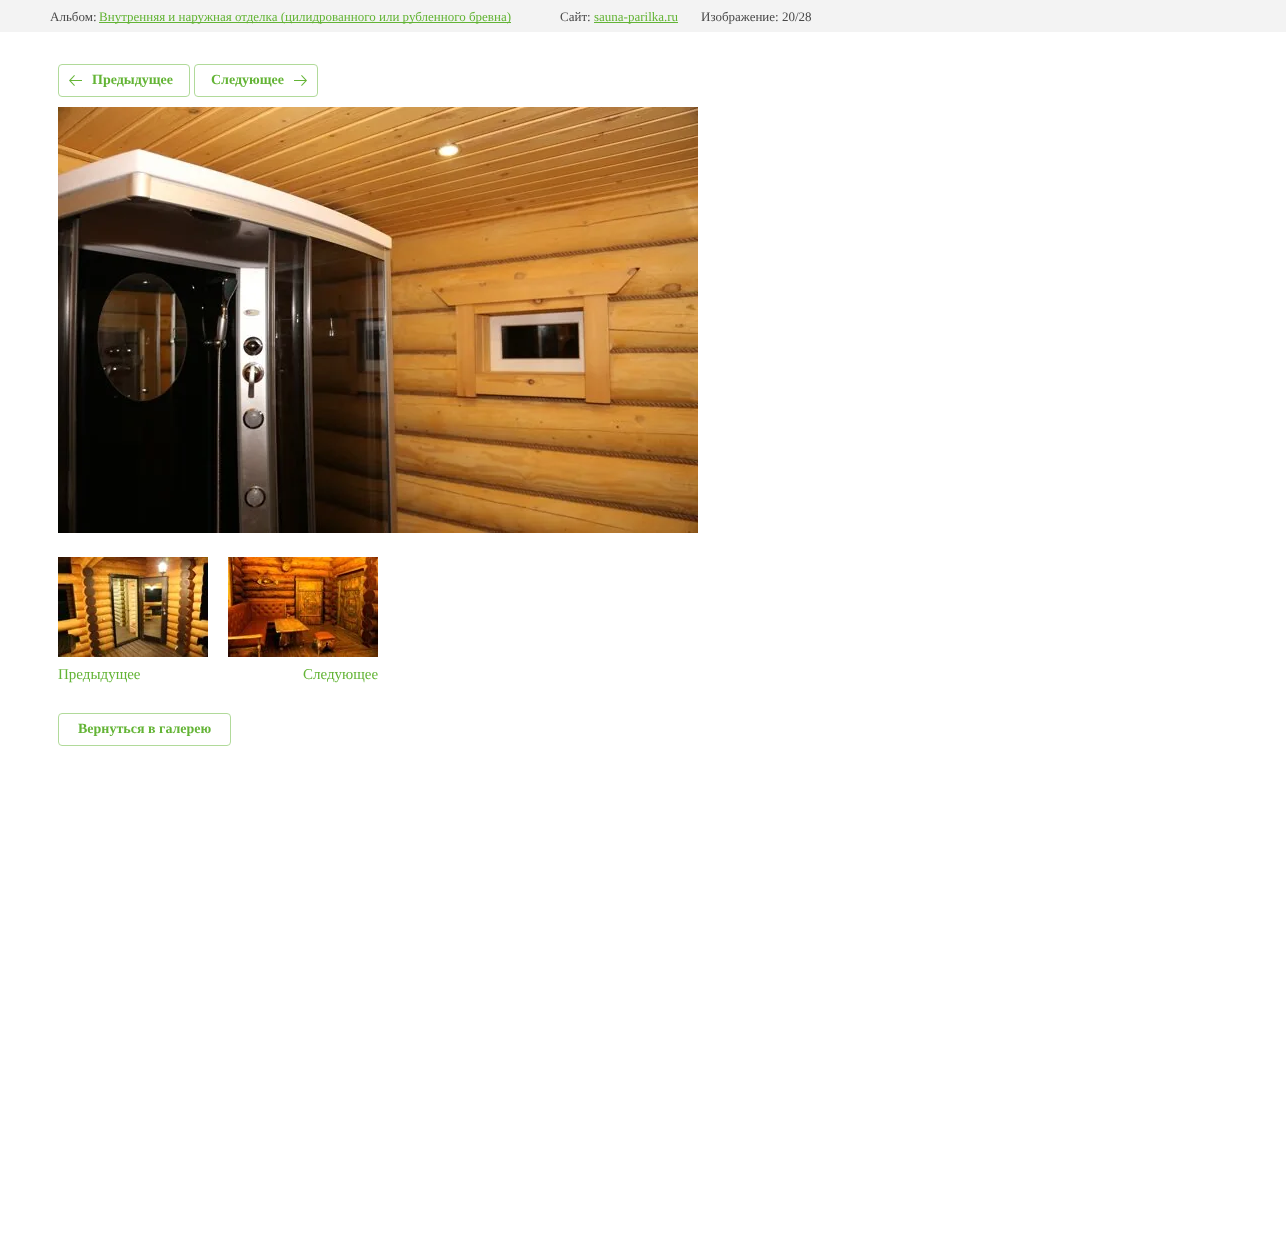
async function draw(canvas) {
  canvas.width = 1286
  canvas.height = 1255
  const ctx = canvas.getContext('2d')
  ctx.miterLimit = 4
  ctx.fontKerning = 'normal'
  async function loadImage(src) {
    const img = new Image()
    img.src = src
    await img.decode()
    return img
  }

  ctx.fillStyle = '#fff'
  ctx.fillRect(0, 0, 1286, 1255)
  ctx.fillStyle = '#f3f3f3'
  ctx.fillRect(0, 0, 1286, 32)
  ctx.font = '13px Liberation Serif'
  ctx.fillStyle = '#484848'
  ctx.fillText('Альбом:', 50, 21)
  ctx.fillStyle = '#63b435'
  ctx.fillRect(99, 22, 412, 1)
  ctx.fillText('Внутренняя и наружная отделка (цилидрованного или рубленного бревна)', 99, 21)
  ctx.fillStyle = '#484848'
  ctx.fillText('Сайт:', 560, 21)
  ctx.fillStyle = '#63b435'
  ctx.fillRect(594, 22, 84, 1)
  ctx.fillText('sauna-parilka.ru', 594, 21)
  ctx.fillStyle = '#484848'
  ctx.fillText('Изображение: 20/28', 701, 21)
  ctx.beginPath()
  ctx.roundRect(58.5, 64.5, 131, 32, 3.5)
  ctx.strokeStyle = '#b1da9a'
  ctx.stroke()
  ctx.drawImage(await loadImage('image0.png'), 69, 75, 13, 11)
  ctx.font = 'bold 14px Liberation Serif'
  ctx.fillStyle = '#63b435'
  ctx.fillText('Предыдущее', 92, 84)
  ctx.beginPath()
  ctx.roundRect(194.5, 64.5, 123, 32, 3.5)
  ctx.stroke()
  ctx.fillText('Следующее', 211, 84)
  ctx.drawImage(await loadImage('image1.png'), 294, 75, 13, 11)
  ctx.drawImage(await loadImage('image2.png'), 58, 107, 640, 426)
  ctx.drawImage(await loadImage('image3.png'), 58, 557, 150, 100)
  ctx.font = '15px Liberation Serif'
  ctx.fillText('Предыдущее', 58, 679)
  ctx.drawImage(await loadImage('image4.png'), 228, 557, 150, 100)
  ctx.fillText('Следующее', 303, 679)
  ctx.beginPath()
  ctx.roundRect(58.5, 713.5, 172, 32, 3.5)
  ctx.stroke()
  ctx.font = 'bold 14px Liberation Serif'
  ctx.fillText('Вернуться в галерею', 78, 733)
}

draw(document.querySelector('canvas'))
